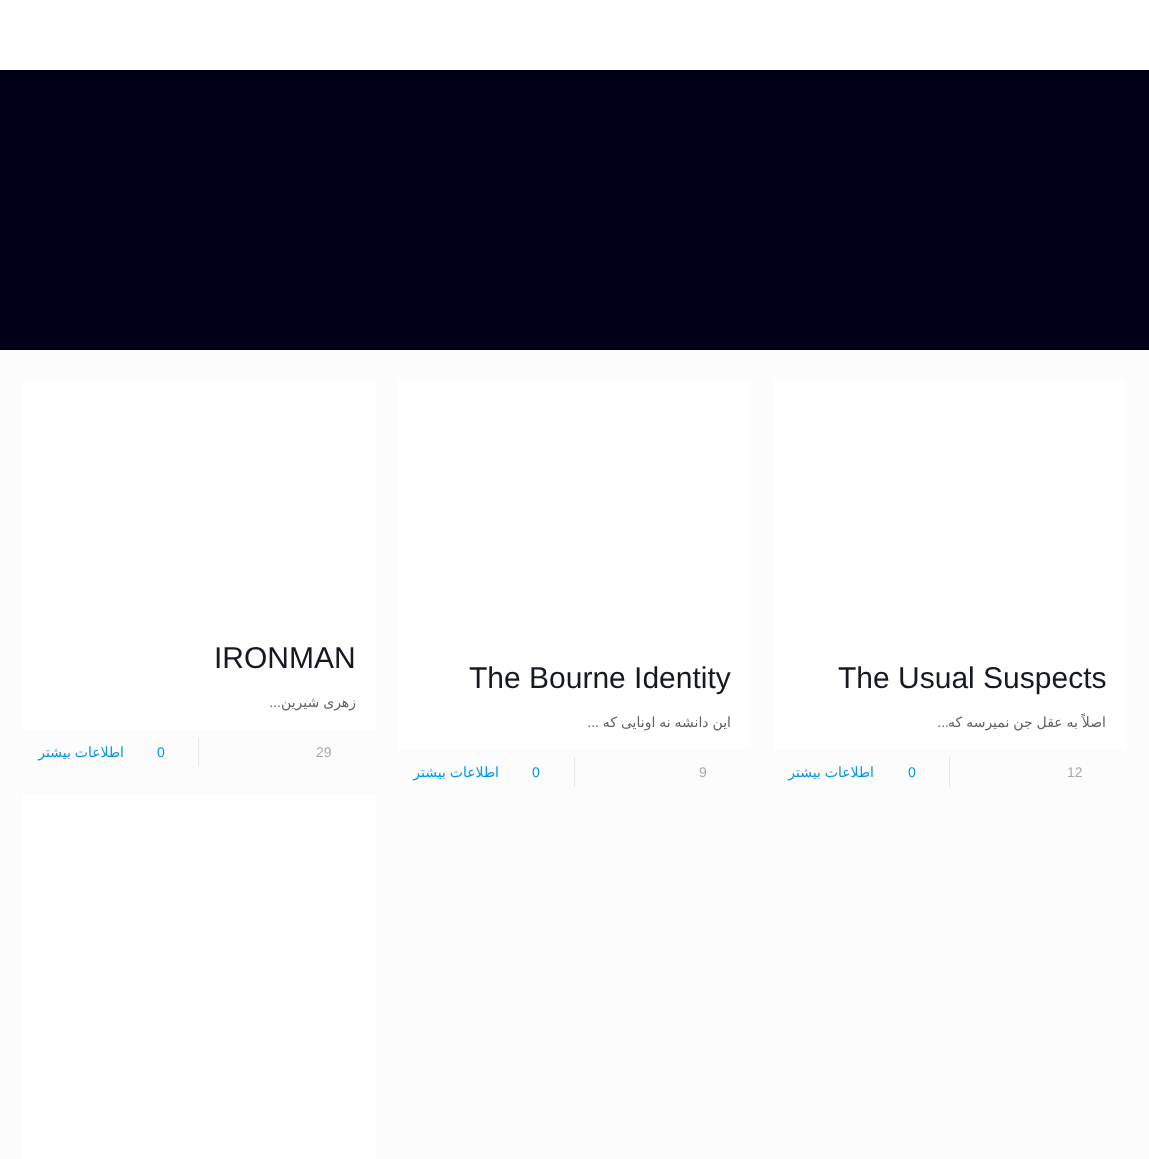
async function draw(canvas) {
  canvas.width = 1149
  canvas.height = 1159
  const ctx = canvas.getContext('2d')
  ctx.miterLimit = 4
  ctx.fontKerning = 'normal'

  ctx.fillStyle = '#fcfcfc'
  ctx.fillRect(0, 0, 1149, 1159)
  ctx.fillStyle = '#000119'
  ctx.fillRect(0, 70, 1149, 280)
  ctx.fillStyle = '#fff'
  ctx.fillRect(0, 0, 1149, 70)
  ctx.fillRect(774, 380, 352, 370)
  ctx.font = '30px Liberation Sans'
  ctx.fillStyle = '#161922'
  ctx.fillText('The Usual Suspects', 838, 688)
  ctx.wordSpacing = '-0.5px'
  ctx.direction = 'rtl'
  ctx.font = '14px DejaVu Sans'
  ctx.fillStyle = '#626262'
  ctx.fillText('اصلاً به عقل جن نمیرسه که', 1106, 727)
  ctx.wordSpacing = '0px'
  ctx.font = '14px Liberation Sans'
  ctx.fillText('...', 949, 727)
  ctx.direction = 'ltr'
  ctx.fillStyle = '#a8a8a8'
  ctx.fillText('12', 1067, 777)
  ctx.fillStyle = '#e6e6e6'
  ctx.fillRect(949, 757, 1, 30)
  ctx.fillStyle = '#0095eb'
  ctx.fillText('0', 908, 777)
  ctx.wordSpacing = '-0.5px'
  ctx.direction = 'rtl'
  ctx.font = '14px DejaVu Sans'
  ctx.fillText('اطلاعات بیشتر', 874, 777)
  ctx.fillStyle = '#fff'
  ctx.fillRect(398, 380, 353, 370)
  ctx.wordSpacing = '0px'
  ctx.direction = 'ltr'
  ctx.font = '30px Liberation Sans'
  ctx.fillStyle = '#161922'
  ctx.fillText('The Bourne Identity', 469, 688)
  ctx.wordSpacing = '-0.5px'
  ctx.direction = 'rtl'
  ctx.font = '14px DejaVu Sans'
  ctx.fillStyle = '#626262'
  ctx.fillText('این دانشه نه اونایی که', 731, 727)
  ctx.wordSpacing = '0px'
  ctx.font = '14px Liberation Sans'
  ctx.fillText('...', 599, 727)
  ctx.direction = 'ltr'
  ctx.fillStyle = '#a8a8a8'
  ctx.fillText('9', 699, 777)
  ctx.fillStyle = '#e6e6e6'
  ctx.fillRect(574, 757, 1, 30)
  ctx.fillStyle = '#0095eb'
  ctx.fillText('0', 532, 777)
  ctx.wordSpacing = '-0.5px'
  ctx.direction = 'rtl'
  ctx.font = '14px DejaVu Sans'
  ctx.fillText('اطلاعات بیشتر', 499, 777)
  ctx.fillStyle = '#fff'
  ctx.fillRect(23, 380, 353, 350)
  ctx.wordSpacing = '0px'
  ctx.direction = 'ltr'
  ctx.font = '30px Liberation Sans'
  ctx.fillStyle = '#161922'
  ctx.fillText('IRONMAN', 214, 668)
  ctx.wordSpacing = '-0.5px'
  ctx.direction = 'rtl'
  ctx.font = '14px DejaVu Sans'
  ctx.fillStyle = '#626262'
  ctx.fillText('زهری شیرین', 356, 707)
  ctx.wordSpacing = '0px'
  ctx.font = '14px Liberation Sans'
  ctx.fillText('...', 281, 707)
  ctx.direction = 'ltr'
  ctx.fillStyle = '#a8a8a8'
  ctx.fillText('29', 316, 757)
  ctx.fillStyle = '#e6e6e6'
  ctx.fillRect(198, 737, 1, 30)
  ctx.fillStyle = '#0095eb'
  ctx.fillText('0', 157, 757)
  ctx.wordSpacing = '-0.5px'
  ctx.direction = 'rtl'
  ctx.font = '14px DejaVu Sans'
  ctx.fillText('اطلاعات بیشتر', 124, 757)
  ctx.fillStyle = '#fff'
  ctx.fillRect(23, 794, 353, 365)
}

draw(document.querySelector('canvas'))
